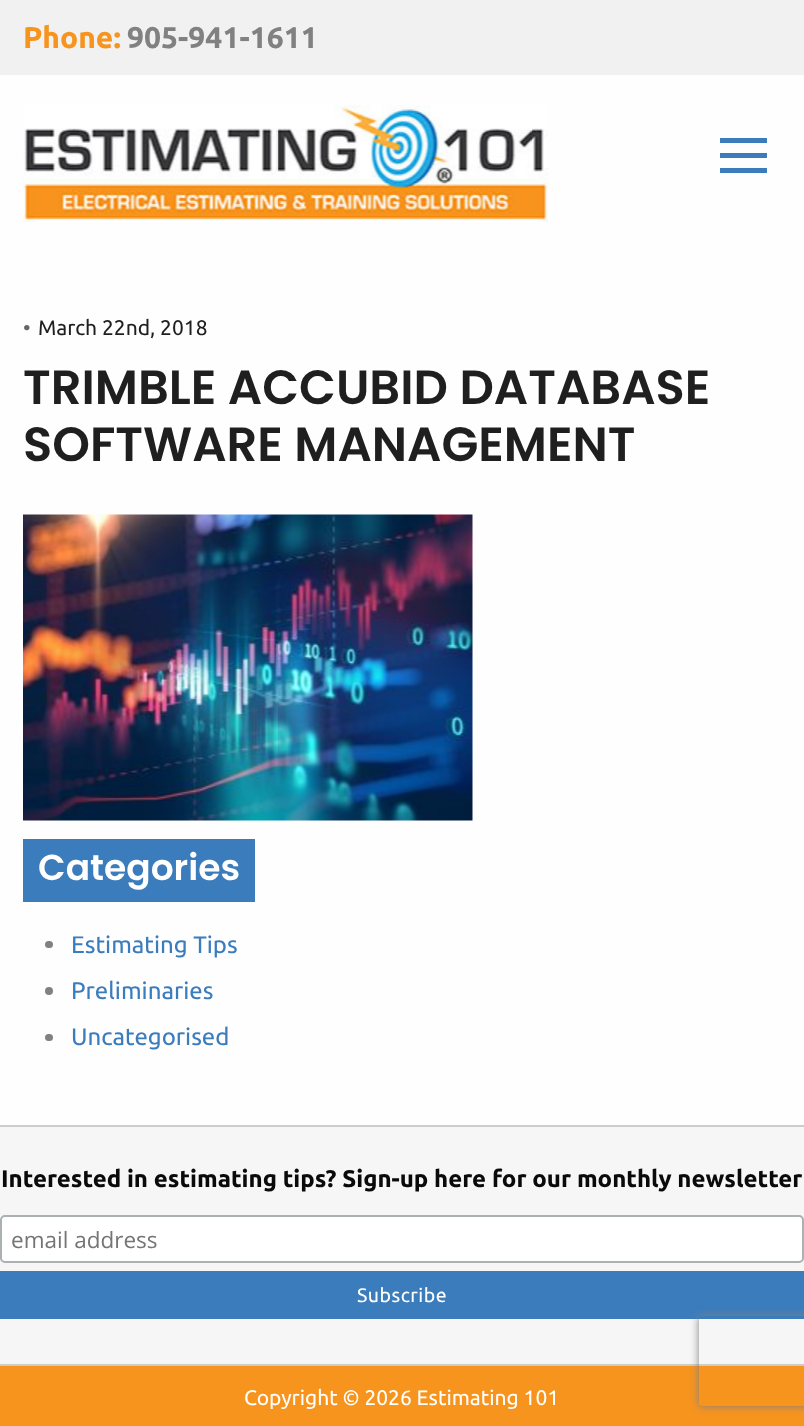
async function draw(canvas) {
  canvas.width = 804
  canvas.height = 1426
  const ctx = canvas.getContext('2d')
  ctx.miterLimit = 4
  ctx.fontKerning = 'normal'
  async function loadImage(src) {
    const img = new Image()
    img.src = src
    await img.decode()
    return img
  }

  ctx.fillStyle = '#fefefe'
  ctx.fillRect(0, 0, 804, 1426)
  ctx.fillStyle = '#f1f1f1'
  ctx.fillRect(0, 0, 804, 75)
  ctx.font = 'bold 30px Ubuntu'
  ctx.fillStyle = '#f7941e'
  ctx.fillText('Phone:', 23, 48)
  ctx.fillStyle = '#818181'
  ctx.fillText('905-941-1611', 127, 48)
  ctx.drawImage(await loadImage('image0.png'), 23, 105, 525, 117)
  ctx.fillStyle = '#3b7cbd'
  ctx.fillRect(720, 138, 47, 5)
  ctx.fillRect(720, 153, 47, 5)
  ctx.fillRect(720, 168, 47, 5)
  ctx.font = '21px Ubuntu'
  ctx.fillStyle = '#666'
  ctx.fillText('•', 23, 335)
  ctx.fillStyle = '#1f1f1f'
  ctx.fillText('March 22nd, 2018', 38, 335)
  ctx.font = '600 48px Poppins'
  ctx.fillText('TRIMBLE ACCUBID DATABASE', 23, 404)
  ctx.fillText('SOFTWARE MANAGEMENT', 23, 461)
  ctx.drawImage(await loadImage('image1.png'), 23, 514, 450, 307)
  ctx.fillStyle = '#3b7cbd'
  ctx.fillRect(23, 839, 232, 63)
  ctx.font = '600 36px Poppins'
  ctx.fillStyle = '#fff'
  ctx.fillText('Categories', 38, 880)
  ctx.fillStyle = '#818181'
  ctx.beginPath()
  ctx.roundRect(45, 941, 8, 7, 3.5)
  ctx.fill()
  ctx.font = '24px Ubuntu'
  ctx.fillStyle = '#3b7cbd'
  ctx.fillText('Estimating Tips', 71, 953)
  ctx.fillStyle = '#818181'
  ctx.beginPath()
  ctx.arc(49, 991, 4, 0, 2 * Math.PI)
  ctx.fill()
  ctx.fillStyle = '#3b7cbd'
  ctx.fillText('Preliminaries', 71, 999)
  ctx.fillStyle = '#818181'
  ctx.beginPath()
  ctx.roundRect(45, 1034, 8, 7, 3.5)
  ctx.fill()
  ctx.fillStyle = '#3b7cbd'
  ctx.fillText('Uncategorised', 71, 1045)
  ctx.fillStyle = '#f6f6f6'
  ctx.fillRect(0, 1127, 804, 237)
  ctx.fillStyle = '#ccc'
  ctx.fillRect(0, 1125, 804, 2)
  ctx.font = 'bold 24px Ubuntu'
  ctx.fillStyle = '#0a0a0a'
  ctx.fillText('Interested in estimating tips? Sign-up here for our monthly newsletter', 1, 1187)
  ctx.fillStyle = '#fff'
  ctx.beginPath()
  ctx.roundRect(1, 1216, 802, 46, 4)
  ctx.fill()
  ctx.strokeStyle = '#abb0b2'
  ctx.lineWidth = 2
  ctx.stroke()
  ctx.font = '22.5px Open Sans'
  ctx.fillStyle = '#757575'
  ctx.fillText('email address', 11, 1248)
  ctx.fillStyle = '#3b7cbd'
  ctx.fillRect(0, 1271, 804, 48)
  ctx.letterSpacing = '0.5px'
  ctx.font = '19.5px Ubuntu'
  ctx.fillStyle = '#fff'
  ctx.fillText('Subscribe', 357, 1302)
  ctx.fillStyle = '#f7941e'
  ctx.fillRect(0, 1366, 804, 60)
  ctx.fillStyle = '#ccc'
  ctx.fillRect(0, 1364, 804, 2)
  ctx.letterSpacing = '0px'
  ctx.font = '21px Ubuntu'
  ctx.fillStyle = '#fff'
  ctx.fillText('Copyright © 2026 Estimating 101', 244, 1405)
  ctx.save()
  ctx.beginPath()
  ctx.moveTo(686, 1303)
  ctx.lineTo(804, 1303)
  ctx.lineTo(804, 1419)
  ctx.lineTo(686, 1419)
  ctx.closePath()
  ctx.moveTo(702, 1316)
  ctx.lineTo(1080, 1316)
  ctx.bezierCurveTo(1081.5, 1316, 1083, 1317.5, 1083, 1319)
  ctx.lineTo(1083, 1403)
  ctx.bezierCurveTo(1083, 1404.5, 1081.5, 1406, 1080, 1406)
  ctx.lineTo(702, 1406)
  ctx.bezierCurveTo(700.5, 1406, 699, 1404.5, 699, 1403)
  ctx.lineTo(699, 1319)
  ctx.bezierCurveTo(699, 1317.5, 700.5, 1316, 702, 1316)
  ctx.closePath()
  ctx.clip('evenodd')
  ctx.fillStyle = '#808080'
  ctx.filter = 'blur(4px)'
  ctx.beginPath()
  ctx.roundRect(699, 1316, 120, 90, 3)
  ctx.fill()
  ctx.filter = 'none'
  ctx.restore()
}

draw(document.querySelector('canvas'))
